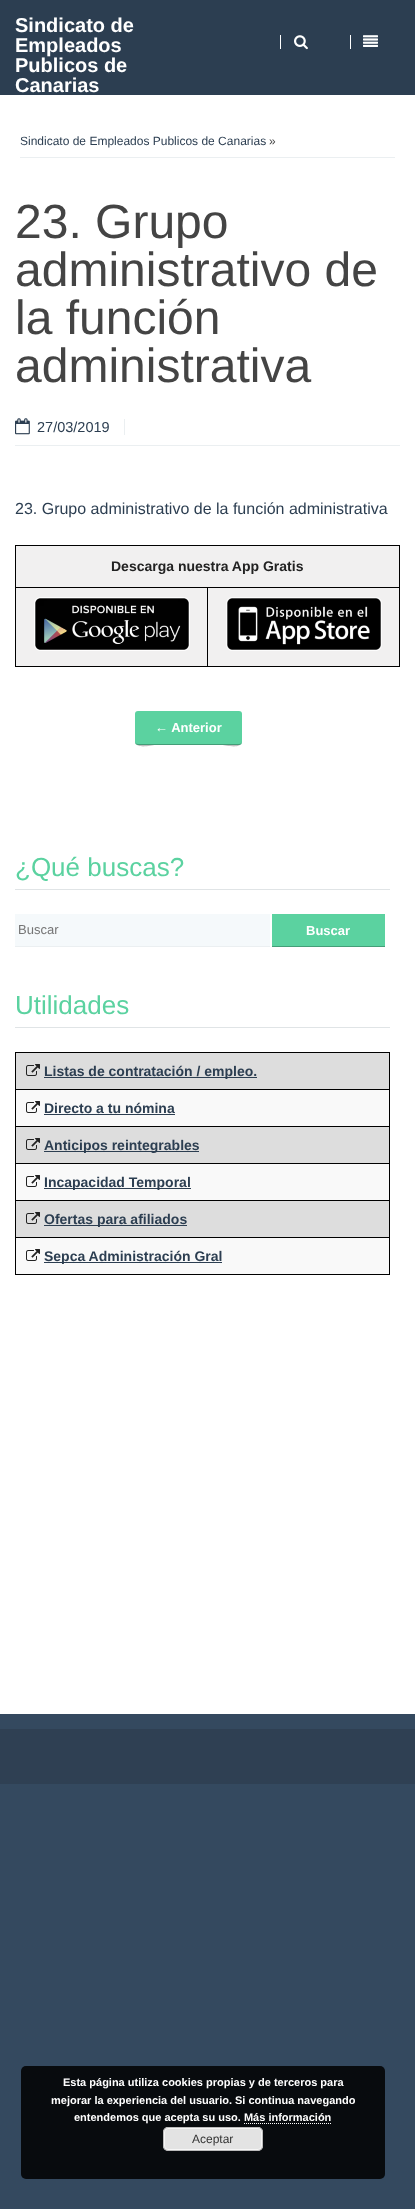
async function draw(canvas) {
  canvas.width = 415
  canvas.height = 2209
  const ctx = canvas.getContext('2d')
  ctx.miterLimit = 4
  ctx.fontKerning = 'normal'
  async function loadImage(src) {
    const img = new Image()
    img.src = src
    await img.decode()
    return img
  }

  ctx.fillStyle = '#fff'
  ctx.fillRect(0, 0, 415, 2209)
  ctx.fillStyle = '#2c3e51'
  ctx.fillRect(0, 0, 415, 95)
  ctx.font = 'bold 20px Liberation Sans'
  ctx.fillStyle = '#fff'
  ctx.fillText('Sindicato de', 15, 32)
  ctx.fillText('Empleados', 15, 52)
  ctx.fillText('Publicos de', 15, 72)
  ctx.fillText('Canarias', 15, 92)
  ctx.fillRect(280, 35, 1, 14)
  ctx.drawImage(await loadImage('image0.png'), 294, 35, 14, 15)
  ctx.fillRect(350, 35, 1, 14)
  ctx.drawImage(await loadImage('image1.png'), 363, 35, 15, 12)
  ctx.fillStyle = '#ebeff1'
  ctx.fillRect(20, 157, 375, 1)
  ctx.font = '12px Liberation Sans'
  ctx.fillStyle = '#2c3e51'
  ctx.fillText('Sindicato de Empleados Publicos de Canarias', 20, 145)
  ctx.fillStyle = '#444'
  ctx.fillText('»', 269, 145)
  ctx.font = '48px Liberation Sans'
  ctx.fillText('23. Grupo', 15, 238)
  ctx.fillText('administrativo de', 15, 286)
  ctx.fillText('la función', 15, 334)
  ctx.fillText('administrativa', 15, 382)
  ctx.fillStyle = '#ebeff1'
  ctx.fillRect(15, 445, 385, 1)
  ctx.fillRect(124, 419, 1, 16)
  ctx.drawImage(await loadImage('image2.png'), 15, 418, 15, 17)
  ctx.font = '14.5px Liberation Sans'
  ctx.fillStyle = '#2c3e51'
  ctx.fillText('27/03/2019', 37, 432)
  ctx.font = '16px Liberation Sans'
  ctx.fillText('23. Grupo administrativo de la función administrativa', 15, 514)
  ctx.fillStyle = '#000'
  ctx.fillRect(15, 545, 385, 1)
  ctx.fillRect(399, 545, 1, 122)
  ctx.fillRect(15, 666, 385, 1)
  ctx.fillRect(15, 545, 1, 122)
  ctx.fillStyle = '#f1f0f0'
  ctx.fillRect(16, 546, 383, 41)
  ctx.font = 'bold 14px Liberation Sans'
  ctx.fillStyle = '#222'
  ctx.fillText('Descarga nuestra App Gratis', 111, 571)
  ctx.fillStyle = '#f1f0f0'
  ctx.fillRect(16, 588, 191, 78)
  ctx.fillStyle = '#000'
  ctx.fillRect(207, 587, 192, 1)
  ctx.fillRect(207, 587, 1, 79)
  ctx.fillRect(16, 587, 192, 1)
  ctx.drawImage(await loadImage('image3.png'), 34, 597, 156, 54)
  ctx.fillStyle = '#f1f0f0'
  ctx.fillRect(208, 588, 191, 78)
  ctx.drawImage(await loadImage('image4.png'), 226, 597, 156, 54)
  ctx.fillStyle = '#5bd2a0'
  ctx.beginPath()
  ctx.roundRect(135, 711, 107, 34, 3)
  ctx.fill()
  ctx.fillStyle = '#00000040'
  ctx.beginPath()
  ctx.moveTo(135, 741)
  ctx.bezierCurveTo(135, 750, 152, 745, 155, 745)
  ctx.lineTo(222, 745)
  ctx.bezierCurveTo(225, 745, 242, 750, 242, 741)
  ctx.bezierCurveTo(242, 743, 241, 744, 239, 744)
  ctx.lineTo(138, 744)
  ctx.bezierCurveTo(136, 744, 135, 743, 135, 741)
  ctx.closePath()
  ctx.fill()
  ctx.font = 'bold 13px Liberation Sans'
  ctx.fillStyle = '#fff'
  ctx.fillText('← Anterior', 155, 732)
  ctx.fillStyle = '#e0e4e6'
  ctx.fillRect(15, 889, 375, 1)
  ctx.font = '26px Liberation Sans'
  ctx.fillStyle = '#5bd2a0'
  ctx.fillText('¿Qué buscas?', 15, 876)
  ctx.fillStyle = '#f5f9fb'
  ctx.fillRect(15, 914, 255, 32)
  ctx.fillStyle = '#ebeff1'
  ctx.fillRect(15, 946, 255, 1)
  ctx.font = '13px Liberation Sans'
  ctx.fillStyle = '#757575'
  ctx.fillText('Buscar', 18, 934)
  ctx.fillStyle = '#5bd2a0'
  ctx.fillRect(272, 914, 113, 32)
  ctx.fillStyle = '#449e78'
  ctx.fillRect(272, 946, 113, 1)
  ctx.font = 'bold 13px Liberation Sans'
  ctx.fillStyle = '#fff'
  ctx.fillText('Buscar', 306, 935)
  ctx.fillStyle = '#e0e4e6'
  ctx.fillRect(15, 1027, 375, 1)
  ctx.font = '26px Liberation Sans'
  ctx.fillStyle = '#5bd2a0'
  ctx.fillText('Utilidades', 15, 1014)
  ctx.fillStyle = '#000'
  ctx.fillRect(15, 1052, 375, 1)
  ctx.fillRect(389, 1052, 1, 223)
  ctx.fillRect(15, 1274, 375, 1)
  ctx.fillRect(15, 1052, 1, 223)
  ctx.fillStyle = '#ddd'
  ctx.fillRect(16, 1053, 373, 36)
  ctx.drawImage(await loadImage('image5.png'), 26, 1064, 14, 12)
  ctx.fillStyle = '#2c3e51'
  ctx.fillRect(44, 1077, 213, 1)
  ctx.font = 'bold 14px Liberation Sans'
  ctx.fillText('Listas de contratación / empleo.', 44, 1076)
  ctx.fillStyle = '#f9f9f9'
  ctx.fillRect(16, 1090, 373, 36)
  ctx.fillStyle = '#000'
  ctx.fillRect(15, 1089, 375, 1)
  ctx.drawImage(await loadImage('image6.png'), 26, 1101, 14, 12)
  ctx.fillStyle = '#2c3e51'
  ctx.fillText('Directo a tu nómina', 44, 1113)
  ctx.fillRect(44, 1114, 131, 1)
  ctx.fillStyle = '#ddd'
  ctx.fillRect(16, 1127, 373, 36)
  ctx.fillStyle = '#000'
  ctx.fillRect(15, 1126, 375, 1)
  ctx.drawImage(await loadImage('image5.png'), 26, 1138, 14, 12)
  ctx.fillStyle = '#2c3e51'
  ctx.fillRect(44, 1151, 155, 1)
  ctx.fillText('Anticipos reintegrables', 44, 1150)
  ctx.fillStyle = '#f9f9f9'
  ctx.fillRect(16, 1164, 373, 36)
  ctx.fillStyle = '#000'
  ctx.fillRect(15, 1163, 375, 1)
  ctx.drawImage(await loadImage('image6.png'), 26, 1175, 14, 12)
  ctx.fillStyle = '#2c3e51'
  ctx.fillRect(44, 1188, 147, 1)
  ctx.fillText('Incapacidad Temporal', 44, 1187)
  ctx.fillStyle = '#ddd'
  ctx.fillRect(16, 1201, 373, 36)
  ctx.fillStyle = '#000'
  ctx.fillRect(15, 1200, 375, 1)
  ctx.drawImage(await loadImage('image5.png'), 26, 1212, 14, 12)
  ctx.fillStyle = '#2c3e51'
  ctx.fillRect(44, 1225, 143, 1)
  ctx.fillText('Ofertas para afiliados', 44, 1224)
  ctx.fillStyle = '#f9f9f9'
  ctx.fillRect(16, 1238, 373, 36)
  ctx.fillStyle = '#000'
  ctx.fillRect(15, 1237, 375, 1)
  ctx.drawImage(await loadImage('image6.png'), 26, 1249, 14, 12)
  ctx.fillStyle = '#2c3e51'
  ctx.fillRect(44, 1262, 178, 1)
  ctx.fillText('Sepca Administración Gral', 44, 1261)
  ctx.fillStyle = '#34495f'
  ctx.fillRect(0, 1714, 415, 495)
  ctx.fillStyle = '#2f4053'
  ctx.fillRect(0, 1729, 415, 55)
  ctx.fillStyle = '#080b0e'
  ctx.beginPath()
  ctx.roundRect(21, 2066, 364, 113, 5)
  ctx.fill()
  ctx.font = 'bold 11px Liberation Sans'
  ctx.fillStyle = '#fff'
  ctx.fillText('Esta página utiliza cookies propias y de terceros para', 63, 2086)
  ctx.fillText('mejorar la experiencia del usuario. Si continua navegando', 51, 2104)
  ctx.fillText('entendemos que acepta su uso. Más información', 74, 2121)
  ctx.beginPath()
  ctx.moveTo(244, 2123.5)
  ctx.lineTo(332, 2123.5)
  ctx.strokeStyle = '#fff'
  ctx.setLineDash([1, 1])
  ctx.stroke()
  ctx.fillStyle = '#e3e3e3'
  ctx.beginPath()
  ctx.roundRect(163, 2127, 100, 24, 5)
  ctx.fill()
  ctx.beginPath()
  ctx.roundRect(164.5, 2128.5, 97, 21, 3.5)
  ctx.strokeStyle = '#f6f6f6'
  ctx.setLineDash([])
  ctx.stroke()
  ctx.beginPath()
  ctx.roundRect(163.5, 2127.5, 99, 23, 4.5)
  ctx.strokeStyle = '#bbb'
  ctx.stroke()
  ctx.font = '12px Liberation Sans'
  ctx.fillStyle = '#333'
  ctx.fillText('Aceptar', 192, 2143)
}

draw(document.querySelector('canvas'))
